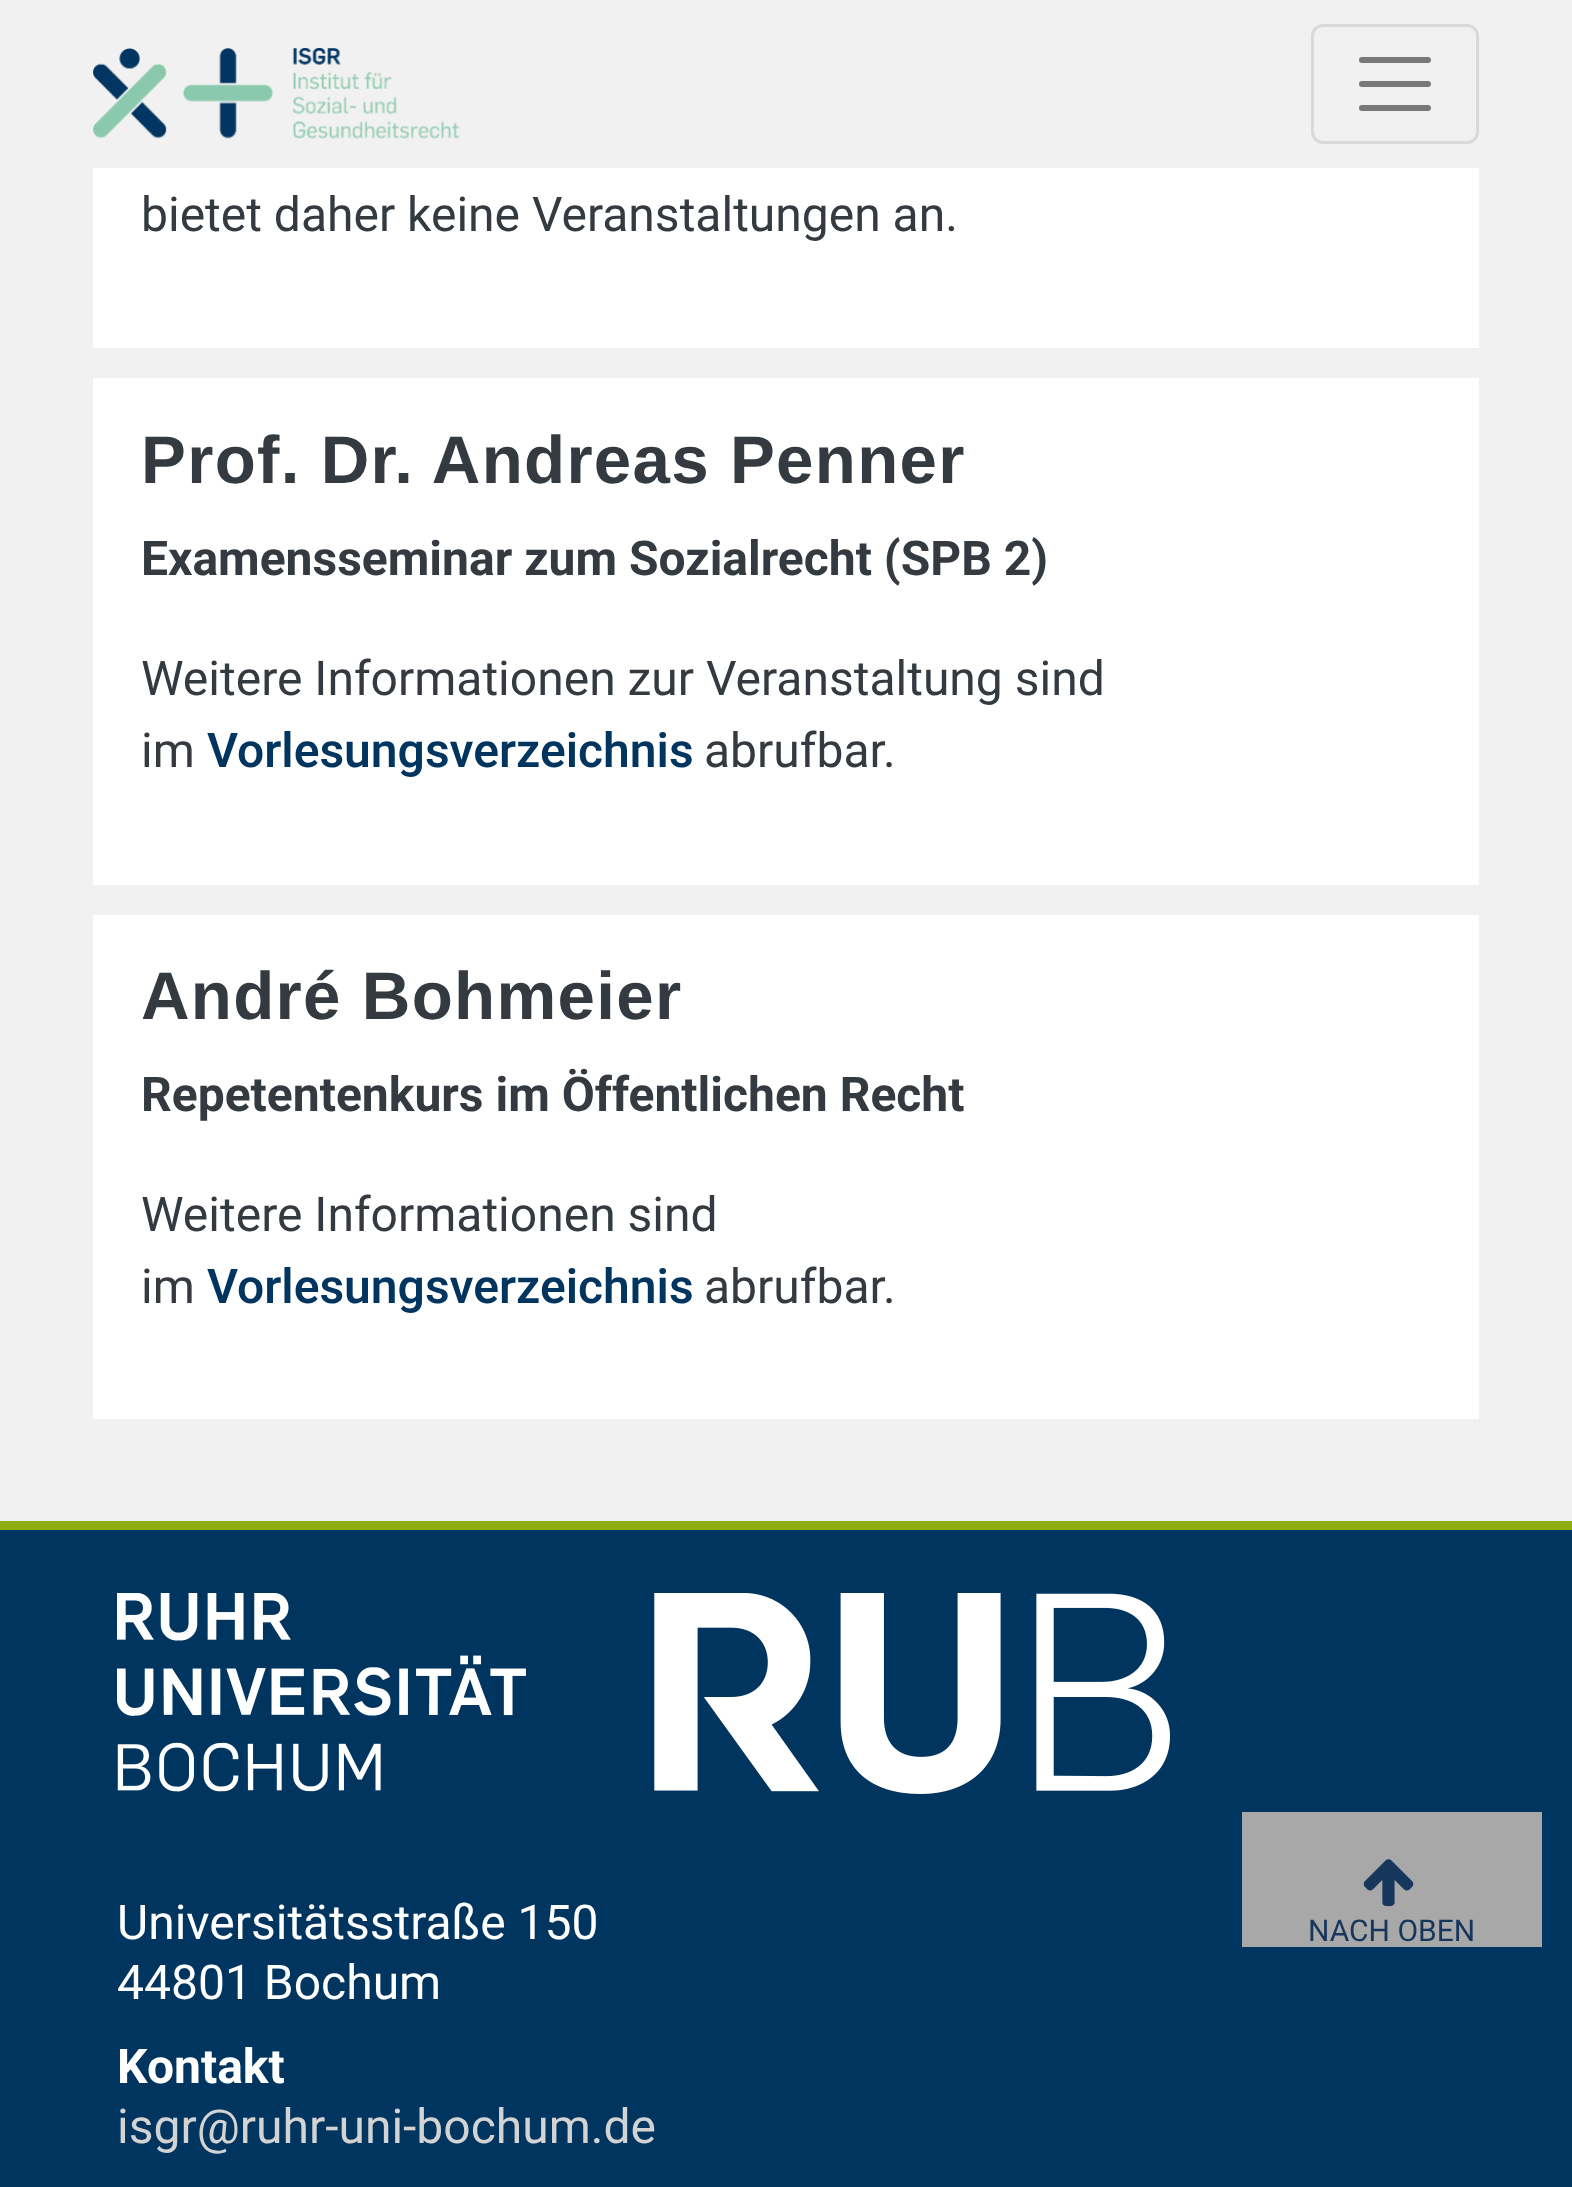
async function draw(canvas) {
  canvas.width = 1572
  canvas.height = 2187
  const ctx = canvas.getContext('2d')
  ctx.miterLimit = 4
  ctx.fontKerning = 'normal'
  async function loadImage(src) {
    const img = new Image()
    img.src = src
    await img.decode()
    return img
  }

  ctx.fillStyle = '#f2f1f1'
  ctx.fillRect(0, 0, 1572, 2187)
  ctx.drawImage(await loadImage('image0.png'), 93, 48, 367, 91)
  ctx.beginPath()
  ctx.roundRect(1312.5, 25.5, 165, 117, 10.5)
  ctx.strokeStyle = '#dad9d9'
  ctx.lineWidth = 3
  ctx.stroke()
  ctx.beginPath()
  ctx.moveTo(1362, 60)
  ctx.lineTo(1428, 60)
  ctx.moveTo(1362, 84)
  ctx.lineTo(1428, 84)
  ctx.moveTo(1362, 108)
  ctx.lineTo(1428, 108)
  ctx.strokeStyle = '#797979'
  ctx.lineWidth = 6
  ctx.lineCap = 'round'
  ctx.stroke()
  ctx.fillStyle = '#fff'
  ctx.fillRect(93, 168, 1386, 180)
  ctx.font = '48px Roboto'
  ctx.fillStyle = '#343a40'
  ctx.fillText('bietet daher keine Veranstaltungen an.', 141, 231)
  ctx.fillStyle = '#fff'
  ctx.fillRect(93, 378, 1386, 507)
  ctx.letterSpacing = '1.3px'
  ctx.font = 'bold 67.25px Liberation Sans'
  ctx.fillStyle = '#343a40'
  ctx.fillText('Prof. Dr. Andreas Penner', 141, 483)
  ctx.letterSpacing = '0px'
  ctx.font = 'bold 48px Roboto'
  ctx.fillText('Examensseminar zum Sozialrecht (SPB 2)', 141, 575)
  ctx.font = '48px Roboto'
  ctx.fillText('Weitere Informationen zur Veranstaltung sind', 141, 695)
  ctx.fillText('im', 141, 767)
  ctx.font = '500 48px Roboto'
  ctx.fillStyle = '#003560'
  ctx.fillText('Vorlesungsverzeichnis', 207, 767)
  ctx.font = '48px Roboto'
  ctx.fillStyle = '#343a40'
  ctx.fillText('abrufbar.', 704, 767)
  ctx.fillStyle = '#fff'
  ctx.fillRect(93, 915, 1386, 504)
  ctx.letterSpacing = '1.3px'
  ctx.font = 'bold 67.25px Liberation Sans'
  ctx.fillStyle = '#343a40'
  ctx.fillText('André Bohmeier', 141, 1019)
  ctx.letterSpacing = '0px'
  ctx.font = 'bold 48px Roboto'
  ctx.fillText('Repetentenkurs im Öffentlichen Recht', 141, 1111)
  ctx.font = '48px Roboto'
  ctx.fillText('Weitere Informationen sind', 141, 1231)
  ctx.fillText('im', 141, 1303)
  ctx.font = '500 48px Roboto'
  ctx.fillStyle = '#003560'
  ctx.fillText('Vorlesungsverzeichnis', 207, 1303)
  ctx.font = '48px Roboto'
  ctx.fillStyle = '#343a40'
  ctx.fillText('abrufbar.', 704, 1303)
  ctx.fillStyle = '#003560'
  ctx.fillRect(0, 1530, 1572, 657)
  ctx.fillStyle = '#8dae10'
  ctx.fillRect(0, 1521, 1572, 9)
  ctx.drawImage(await loadImage('image1.png'), 117, 1593, 1053, 201)
  ctx.fillStyle = '#fff'
  ctx.fillText('Universitätsstraße 150', 117, 1939)
  ctx.fillText('44801 Bochum', 117, 1999)
  ctx.font = 'bold 48px Roboto'
  ctx.fillText('Kontakt', 117, 2083)
  ctx.font = '48px Roboto'
  ctx.fillStyle = '#d3d3d3'
  ctx.fillText('isgr@ruhr-uni-bochum.de', 117, 2143)
  ctx.fillStyle = '#a8a8a8'
  ctx.fillRect(1242, 1812, 300, 135)
  ctx.drawImage(await loadImage('image2.png'), 1363, 1859, 51, 48)
  ctx.font = '30px Roboto'
  ctx.fillStyle = '#17365c'
  ctx.fillText('NACH OBEN', 1308, 1941)
}

draw(document.querySelector('canvas'))
